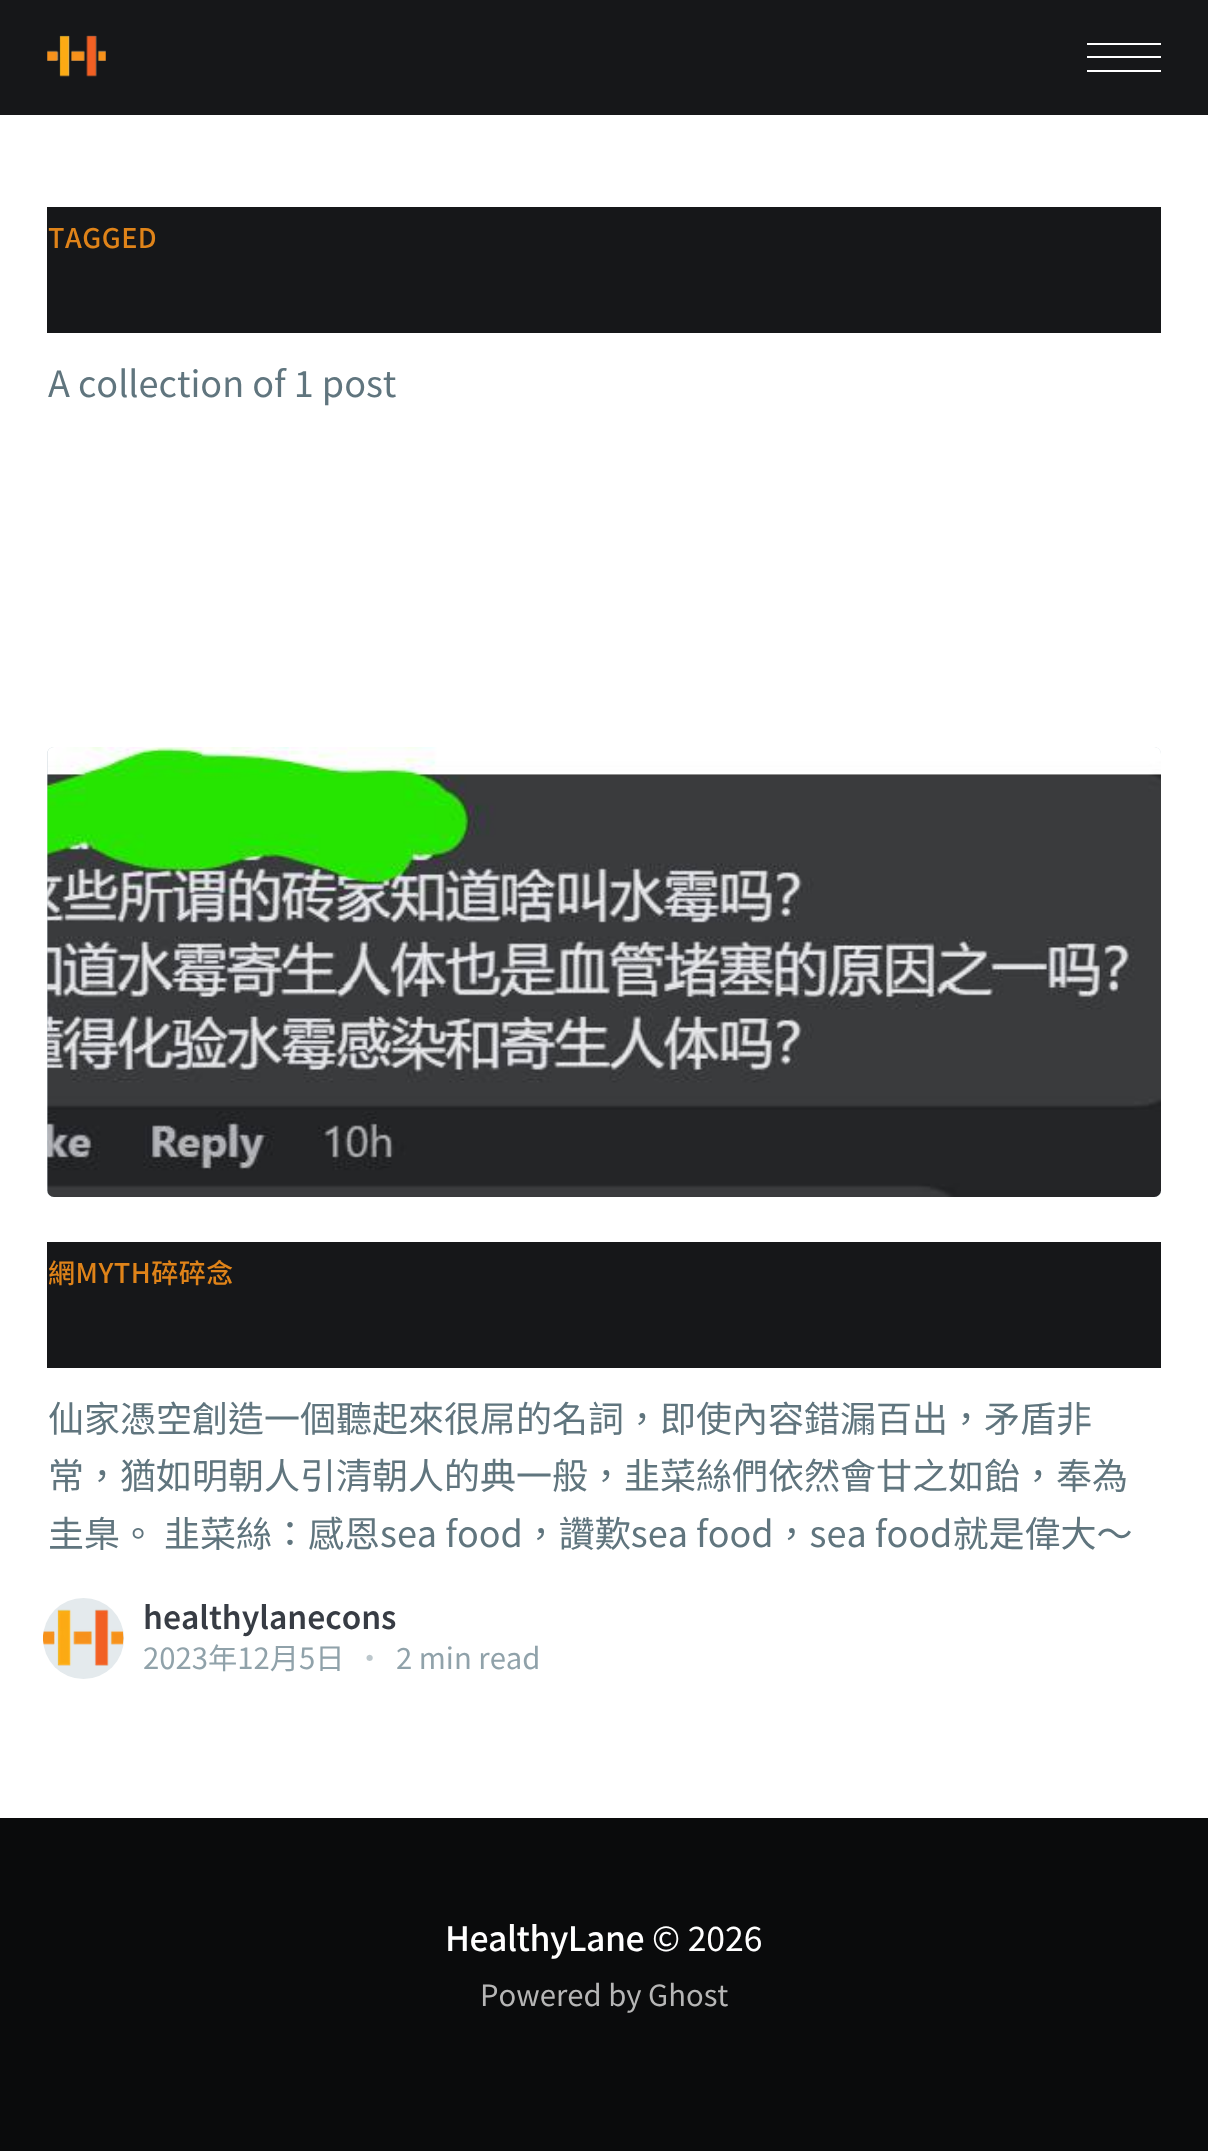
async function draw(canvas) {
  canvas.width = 1208
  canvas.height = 2151
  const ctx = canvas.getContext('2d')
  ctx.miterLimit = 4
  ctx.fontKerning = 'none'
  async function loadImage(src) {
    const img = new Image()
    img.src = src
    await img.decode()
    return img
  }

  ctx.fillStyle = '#fff'
  ctx.fillRect(0, 0, 1208, 2151)
  ctx.fillStyle = '#161719'
  ctx.fillRect(0, 0, 1208, 115)
  ctx.drawImage(await loadImage('image0.png'), 47, 35, 59, 42)
  ctx.fillStyle = '#fff'
  ctx.fillRect(1087, 43, 74, 2)
  ctx.fillRect(1087, 70, 74, 2)
  ctx.fillRect(1087, 56, 74, 2)
  ctx.fillStyle = '#161719'
  ctx.fillRect(47, 207, 1114, 126)
  ctx.letterSpacing = '0.5px'
  ctx.font = '500 27px Noto Sans TC'
  ctx.fillStyle = '#df8319'
  ctx.fillText('TAGGED', 48, 248)
  ctx.letterSpacing = '0px'
  ctx.font = '36px Noto Sans TC'
  ctx.fillStyle = '#60757e'
  ctx.fillText('A collection of 1 post', 48, 397)
  ctx.fillStyle = '#c5d2d9'
  ctx.beginPath()
  ctx.roundRect(47, 747, 1114, 450, 7)
  ctx.fill()
  ctx.drawImage(await loadImage('image1.png'), 47, 747, 1114, 450)
  ctx.fillStyle = '#161719'
  ctx.fillRect(47, 1242, 1114, 126)
  ctx.letterSpacing = '0.5px'
  ctx.font = '500 27px Noto Sans TC'
  ctx.fillStyle = '#df8319'
  ctx.fillText('網MYTH碎碎念', 48, 1283)
  ctx.letterSpacing = '0px'
  ctx.font = '36px Noto Sans TC'
  ctx.fillStyle = '#60757e'
  ctx.fillText('仙家憑空創造一個聽起來很屌的名詞，即使內容錯漏百出，矛盾非', 48, 1432)
  ctx.fillText('常，猶如明朝人引清朝人的典一般，韭菜絲們依然會甘之如飴，奉為', 48, 1489)
  ctx.fillText('圭臬。 韭菜絲：感恩sea food，讚歎sea food，sea food就是偉大～', 48, 1547)
  ctx.fillStyle = '#e4eaed'
  ctx.beginPath()
  ctx.arc(83.5, 1638.5, 40.5, 0, 2 * Math.PI)
  ctx.fill()
  ctx.drawImage(await loadImage('image2.png'), 43, 1609, 81, 57)
  ctx.font = '600 31.5px Noto Sans TC'
  ctx.fillStyle = '#373c44'
  ctx.fillText('healthylanecons', 143, 1629)
  ctx.font = '29.25px Noto Sans TC'
  ctx.fillStyle = '#90a2aa'
  ctx.fillText('2023年12月5日', 143, 1669)
  ctx.fillStyle = '#bcc7cc'
  ctx.fillText('•', 355, 1669)
  ctx.fillStyle = '#90a2aa'
  ctx.fillText('2 min read', 396, 1669)
  ctx.fillStyle = '#0a0b0c'
  ctx.fillRect(0, 1818, 1208, 333)
  ctx.letterSpacing = '-0.5px'
  ctx.font = '500 33.75px Noto Sans TC'
  ctx.fillStyle = '#fff'
  ctx.fillText('HealthyLane', 445, 1951)
  ctx.letterSpacing = '0px'
  ctx.font = '33.75px Noto Sans TC'
  ctx.fillText('© 2026', 652, 1951)
  ctx.font = '29.25px Noto Sans TC'
  ctx.fillStyle = '#b6b6b6'
  ctx.fillText('Powered by Ghost', 480, 2006)
}

draw(document.querySelector('canvas'))
